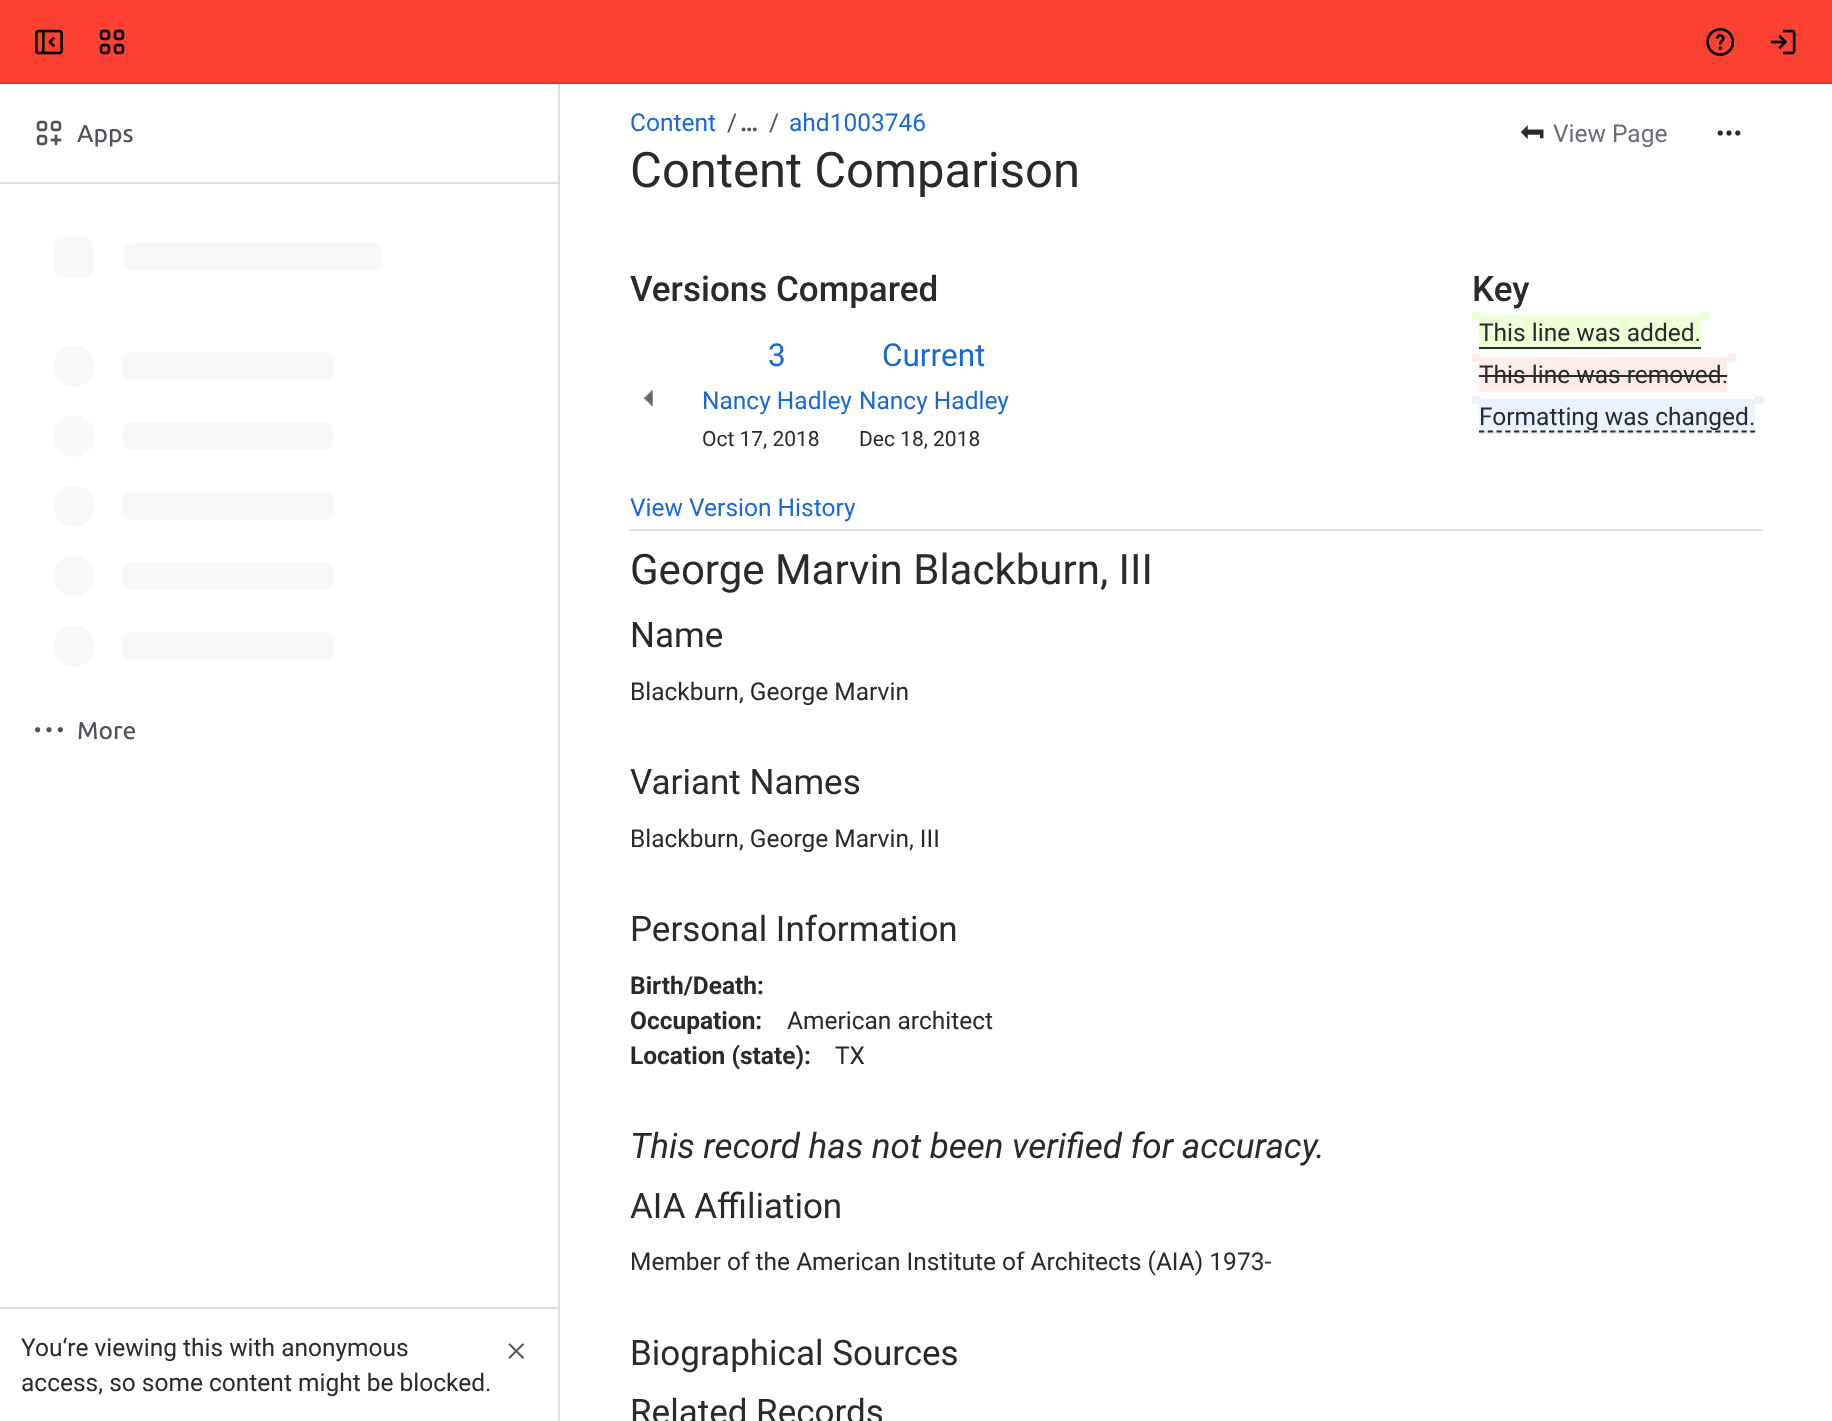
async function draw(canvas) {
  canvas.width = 1832
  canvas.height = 1421
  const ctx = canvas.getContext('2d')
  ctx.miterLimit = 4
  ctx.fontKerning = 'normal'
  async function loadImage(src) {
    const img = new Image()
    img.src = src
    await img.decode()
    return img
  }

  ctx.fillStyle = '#fff'
  ctx.fillRect(0, 0, 1832, 1421)
  ctx.fillStyle = '#fa4132'
  ctx.fillRect(0, 0, 1832, 82)
  ctx.fillStyle = '#d93a2d'
  ctx.fillRect(0, 82, 1832, 2)
  ctx.drawImage(await loadImage('image0.png'), 35, 29, 28, 26)
  ctx.drawImage(await loadImage('image1.png'), 99, 29, 26, 26)
  ctx.drawImage(await loadImage('image2.png'), 1706, 28, 28, 28)
  ctx.drawImage(await loadImage('image3.png'), 1771, 29, 25, 26)
  ctx.fillStyle = '#dddedd'
  ctx.fillRect(558, 84, 2, 1337)
  ctx.drawImage(await loadImage('image4.png'), 36, 120, 26, 26)
  ctx.font = '500 24.5px Ubuntu'
  ctx.fillStyle = '#505258'
  ctx.fillText('Apps', 77, 142)
  ctx.fillStyle = '#dddedd'
  ctx.fillRect(0, 182, 558, 2)
  ctx.fillStyle = '#f8f8f8'
  ctx.beginPath()
  ctx.roundRect(53, 236, 40, 42, 11)
  ctx.fill()
  ctx.beginPath()
  ctx.roundRect(124, 243, 258, 28, 7)
  ctx.fill()
  ctx.beginPath()
  ctx.arc(74, 366, 21, 0, 2 * Math.PI)
  ctx.fill()
  ctx.beginPath()
  ctx.roundRect(123, 352, 210, 28, 7)
  ctx.fill()
  ctx.beginPath()
  ctx.arc(74, 436, 21, 0, 2 * Math.PI)
  ctx.fill()
  ctx.beginPath()
  ctx.roundRect(123, 422, 210, 28, 7)
  ctx.fill()
  ctx.beginPath()
  ctx.arc(74, 506, 21, 0, 2 * Math.PI)
  ctx.fill()
  ctx.beginPath()
  ctx.roundRect(123, 492, 210, 28, 7)
  ctx.fill()
  ctx.beginPath()
  ctx.arc(74, 576, 21, 0, 2 * Math.PI)
  ctx.fill()
  ctx.beginPath()
  ctx.roundRect(123, 562, 210, 28, 7)
  ctx.fill()
  ctx.beginPath()
  ctx.arc(74, 646, 21, 0, 2 * Math.PI)
  ctx.fill()
  ctx.beginPath()
  ctx.roundRect(123, 632, 210, 28, 7)
  ctx.fill()
  ctx.drawImage(await loadImage('image5.png'), 35, 727, 28, 6)
  ctx.fillStyle = '#505258'
  ctx.fillText('More', 77, 739)
  ctx.fillStyle = '#dddedd'
  ctx.fillRect(0, 1307, 558, 2)
  ctx.font = '24.5px Roboto'
  ctx.fillStyle = '#292a2e'
  ctx.fillText('You‘re viewing this with anonymous', 21, 1356)
  ctx.fillText('access, so some content might be blocked.', 21, 1391)
  ctx.drawImage(await loadImage('image6.png'), 508, 1343, 17, 16)
  ctx.fillStyle = '#1868db'
  ctx.fillText('Content', 630, 131)
  ctx.fillStyle = '#505258'
  ctx.fillText('/', 727, 131)
  ctx.font = 'bold 24.5px Roboto'
  ctx.fillText('…', 740, 131)
  ctx.font = '24.5px Roboto'
  ctx.fillText('/', 769, 131)
  ctx.fillStyle = '#1868db'
  ctx.fillText('ahd1003746', 789, 131)
  ctx.font = '49px Roboto'
  ctx.fillStyle = '#292a2e'
  ctx.fillText('Content Comparison', 630, 187)
  ctx.drawImage(await loadImage('image7.png'), 1520, 125, 24, 14)
  ctx.font = '24.5px Roboto'
  ctx.fillStyle = '#6b6e76'
  ctx.fillText('View Page', 1553, 142)
  ctx.drawImage(await loadImage('image8.png'), 1717, 130, 24, 6)
  ctx.fillStyle = '#dddedd'
  ctx.fillRect(630, 529, 1132, 2)
  ctx.font = '500 35px Roboto'
  ctx.fillStyle = '#292a2e'
  ctx.fillText('Versions Compared', 630, 301)
  ctx.fillText('Key', 1472, 301)
  ctx.fillStyle = '#efffd6'
  ctx.fillRect(1472, 312, 9, 8)
  ctx.fillRect(1479, 315, 222, 35)
  ctx.font = '24.5px Roboto'
  ctx.fillStyle = '#292a2e'
  ctx.fillText('This line was added.', 1479, 341)
  ctx.fillStyle = '#efffd6'
  ctx.fillRect(1701, 312, 9, 8)
  ctx.fillStyle = '#292a2e'
  ctx.fillRect(1479, 347, 222, 2)
  ctx.fillStyle = '#ffeceb'
  ctx.fillRect(1472, 354, 9, 8)
  ctx.fillRect(1479, 357, 248, 35)
  ctx.fillStyle = '#292a2e'
  ctx.fillText('This line was removed.', 1479, 383)
  ctx.fillStyle = '#ffeceb'
  ctx.fillRect(1727, 354, 9, 8)
  ctx.fillStyle = '#292a2e'
  ctx.fillRect(1479, 375, 248, 2)
  ctx.fillStyle = '#e9f2fe'
  ctx.fillRect(1472, 396, 9, 8)
  ctx.fillRect(1479, 399, 276, 35)
  ctx.beginPath()
  ctx.moveTo(1479, 431.5)
  ctx.lineTo(1755, 431.5)
  ctx.strokeStyle = '#292a2e'
  ctx.lineWidth = 1.8
  ctx.setLineDash([5.25, 3.5])
  ctx.stroke()
  ctx.fillStyle = '#292a2e'
  ctx.fillText('Formatting was changed.', 1479, 425)
  ctx.fillStyle = '#e9f2fe'
  ctx.fillRect(1755, 396, 9, 8)
  ctx.font = '31.5px Roboto'
  ctx.fillStyle = '#1868db'
  ctx.fillText('3', 768, 366)
  ctx.fillText('Current', 882, 366)
  ctx.font = '24.5px Roboto'
  ctx.fillText('Nancy Hadley', 702, 409)
  ctx.fillText('Nancy Hadley', 859, 409)
  ctx.font = '21px Roboto'
  ctx.fillStyle = '#292a2e'
  ctx.fillText('Oct 17, 2018', 702, 446)
  ctx.fillText('Dec 18, 2018', 859, 446)
  ctx.drawImage(await loadImage('image9.png'), 644, 390, 9, 16)
  ctx.font = '24.5px Roboto'
  ctx.fillStyle = '#1868db'
  ctx.fillText('View Version History', 630, 516)
  ctx.font = '42px Roboto'
  ctx.fillStyle = '#292a2e'
  ctx.fillText('George Marvin Blackburn, III', 630, 584)
  ctx.font = '35px Roboto'
  ctx.fillText('Name', 630, 647)
  ctx.font = '24.5px Roboto'
  ctx.fillText('Blackburn, George Marvin', 630, 700)
  ctx.font = '35px Roboto'
  ctx.fillText('Variant Names', 630, 794)
  ctx.font = '24.5px Roboto'
  ctx.fillText('Blackburn, George Marvin, III', 630, 847)
  ctx.font = '35px Roboto'
  ctx.fillText('Personal Information', 630, 941)
  ctx.font = 'bold 24.5px Roboto'
  ctx.fillText('Birth/Death:', 630, 994)
  ctx.fillText('Occupation:', 630, 1029)
  ctx.font = '24.5px Roboto'
  ctx.fillText('American architect', 787, 1029)
  ctx.font = 'bold 24.5px Roboto'
  ctx.fillText('Location (state):', 630, 1064)
  ctx.font = '24.5px Roboto'
  ctx.fillText('TX', 835, 1064)
  ctx.font = 'italic 35px Roboto'
  ctx.fillText('This record has not been verified for accuracy.', 630, 1158)
  ctx.font = '35px Roboto'
  ctx.fillText('AIA Affiliation', 630, 1218)
  ctx.font = '24.5px Roboto'
  ctx.fillText('Member of the American Institute of Architects (AIA) 1973-', 630, 1270)
  ctx.font = '35px Roboto'
  ctx.fillText('Biographical Sources', 630, 1365)
  ctx.fillText('Related Records', 630, 1424)
}

draw(document.querySelector('canvas'))
